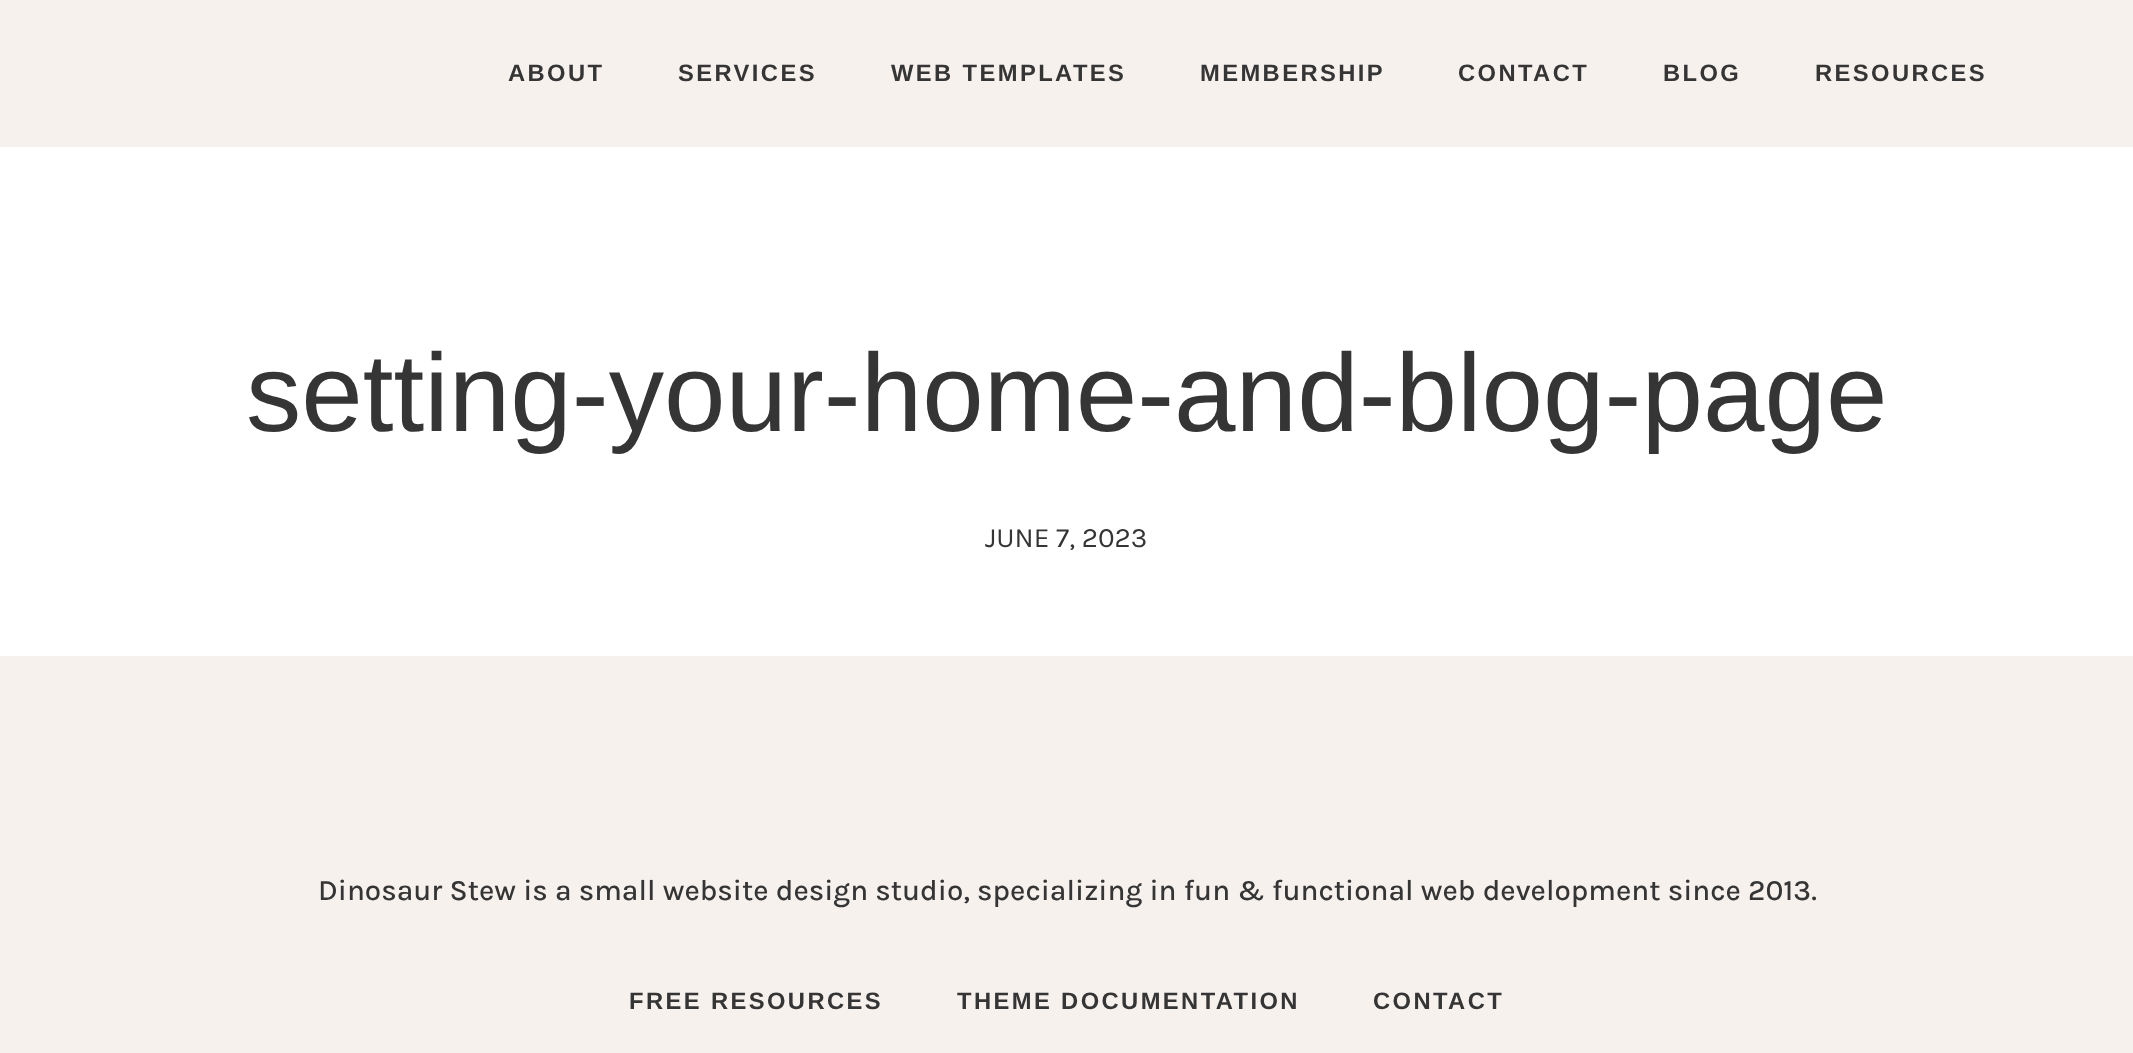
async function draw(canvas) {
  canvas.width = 2133
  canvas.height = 1053
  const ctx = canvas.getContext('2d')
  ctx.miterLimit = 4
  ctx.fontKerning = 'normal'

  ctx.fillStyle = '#fff'
  ctx.fillRect(0, 0, 2133, 1053)
  ctx.fillStyle = '#f7f1ee'
  ctx.fillRect(0, 0, 2133, 147)
  ctx.letterSpacing = '2.4px'
  ctx.font = 'bold 23.75px Liberation Sans'
  ctx.fillStyle = '#353535'
  ctx.fillText('ABOUT', 508, 81)
  ctx.fillText('SERVICES', 678, 81)
  ctx.fillText('WEB TEMPLATES', 891, 81)
  ctx.fillText('MEMBERSHIP', 1200, 81)
  ctx.fillText('CONTACT', 1458, 81)
  ctx.fillText('BLOG', 1663, 81)
  ctx.fillText('RESOURCES', 1815, 81)
  ctx.letterSpacing = '0px'
  ctx.font = '110.6px Liberation Sans'
  ctx.fillText('setting-your-home-and-blog-page', 246, 431)
  ctx.font = '28px Karla'
  ctx.fillText('JUNE 7, 2023', 985, 547)
  ctx.fillStyle = '#f7f1ee'
  ctx.fillRect(0, 656, 2133, 397)
  ctx.font = '500 29.4px Karla'
  ctx.fillStyle = '#353535'
  ctx.fillText('Dinosaur Stew is a small website design studio, specializing in fun & functional web development since 2013.', 318, 900)
  ctx.letterSpacing = '2.4px'
  ctx.font = 'bold 23.75px Liberation Sans'
  ctx.fillText('FREE RESOURCES', 629, 1009)
  ctx.fillText('THEME DOCUMENTATION', 957, 1009)
  ctx.fillText('CONTACT', 1373, 1009)
}

draw(document.querySelector('canvas'))
